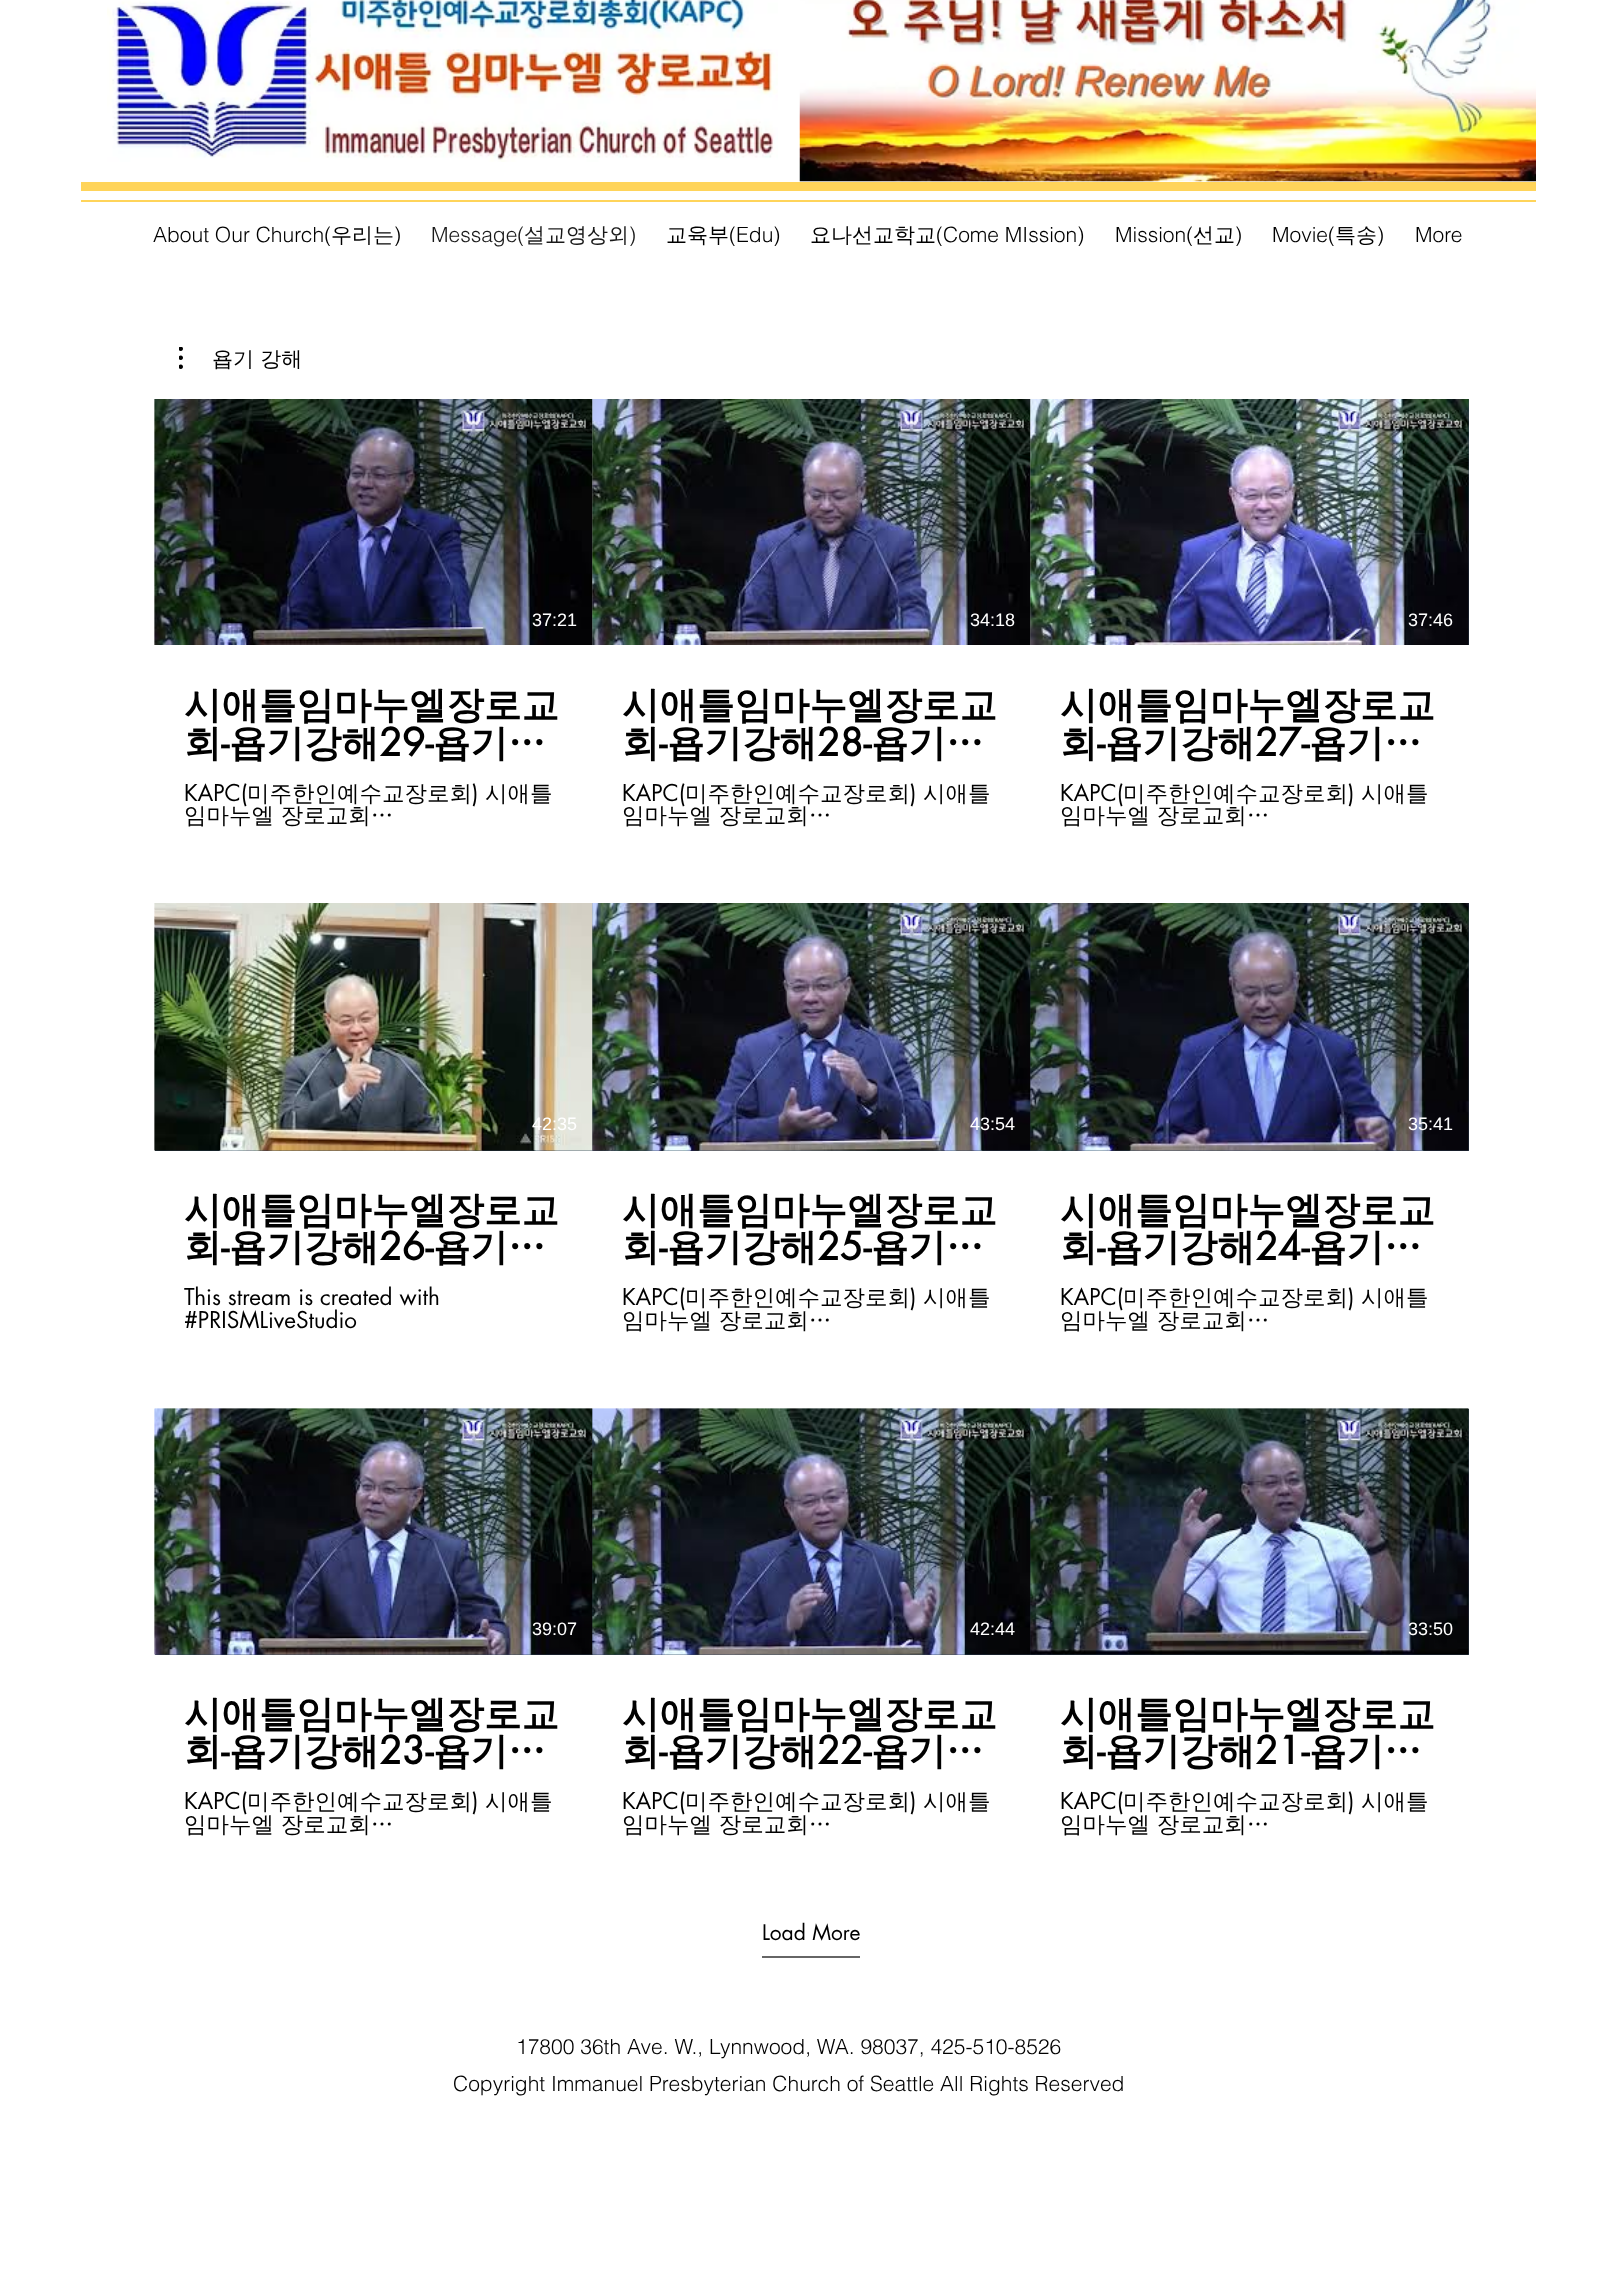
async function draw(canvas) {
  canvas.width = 1621
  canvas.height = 2271
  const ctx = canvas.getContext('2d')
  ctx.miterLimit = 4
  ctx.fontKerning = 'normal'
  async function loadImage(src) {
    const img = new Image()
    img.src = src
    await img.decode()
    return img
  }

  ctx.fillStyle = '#fff'
  ctx.fillRect(0, 0, 1621, 2271)
  ctx.drawImage(await loadImage('image0.png'), 107, 0, 671, 162)
  ctx.drawImage(await loadImage('image1.png'), 799, 0, 737, 182)
  ctx.fillStyle = '#ffd45a'
  ctx.fillRect(81, 182, 1455, 9)
  ctx.fillRect(81, 200, 1455, 2)
  ctx.font = '300 21px helvetica'
  ctx.fillStyle = '#000'
  ctx.fillText('About Our Church(', 153, 242)
  ctx.font = '500 21px WenQuanYi Zen Hei'
  ctx.fillText('우리는', 331, 242)
  ctx.font = '300 21px helvetica'
  ctx.fillText(')', 394, 242)
  ctx.fillStyle = '#191919'
  ctx.fillText('Message(', 431, 242)
  ctx.font = '500 21px WenQuanYi Zen Hei'
  ctx.fillText('설교영상외', 524, 242)
  ctx.font = '300 21px helvetica'
  ctx.fillText(')', 629, 242)
  ctx.font = '500 21px WenQuanYi Zen Hei'
  ctx.fillStyle = '#000'
  ctx.fillText('교육부', 666, 242)
  ctx.font = '300 21px helvetica'
  ctx.fillText('(Edu)', 729, 242)
  ctx.font = '500 21px WenQuanYi Zen Hei'
  ctx.fillText('요나선교학교', 810, 242)
  ctx.font = '300 21px helvetica'
  ctx.fillText('(Come MIssion)', 936, 242)
  ctx.fillText('Mission(', 1115, 242)
  ctx.font = '500 21px WenQuanYi Zen Hei'
  ctx.fillText('선교', 1193, 242)
  ctx.font = '300 21px helvetica'
  ctx.fillText(')', 1235, 242)
  ctx.fillText('Movie(', 1272, 242)
  ctx.font = '500 21px WenQuanYi Zen Hei'
  ctx.fillText('특송', 1335, 242)
  ctx.font = '300 21px helvetica'
  ctx.fillText(')', 1377, 242)
  ctx.fillText('More', 1415, 242)
  ctx.drawImage(await loadImage('image2.png'), 179, 347, 4, 22)
  ctx.font = '500 21px WenQuanYi Zen Hei'
  ctx.fillText('욥기 강해', 212, 366)
  ctx.drawImage(await loadImage('image3.png'), 154, 399, 439, 246)
  ctx.drawImage(await loadImage('image4.png'), 154, 399, 439, 246)
  ctx.font = '18px Liberation Sans'
  ctx.fillStyle = '#fff'
  ctx.fillText('37:21', 532, 626)
  ctx.font = 'bold 37.5px WenQuanYi Zen Hei'
  ctx.fillStyle = '#000'
  ctx.fillText('시애틀임마누엘장로교', 184, 718)
  ctx.fillText('회', 184, 756)
  ctx.font = 'bold 37.5px futura'
  ctx.fillText('-', 221, 756)
  ctx.font = 'bold 37.5px WenQuanYi Zen Hei'
  ctx.fillText('욥기강해', 229, 756)
  ctx.font = 'bold 37.5px futura'
  ctx.fillText('29-', 379, 756)
  ctx.font = 'bold 37.5px WenQuanYi Zen Hei'
  ctx.fillText('욥기…', 433, 756)
  ctx.font = '22.5px futura'
  ctx.fillText('KAPC(', 184, 801)
  ctx.font = '500 22.5px WenQuanYi Zen Hei'
  ctx.fillText('미주한인예수교장로회', 247, 801)
  ctx.font = '22.5px futura'
  ctx.fillText(')', 472, 801)
  ctx.font = '500 22.5px WenQuanYi Zen Hei'
  ctx.fillText('시애틀', 485, 801)
  ctx.fillText('임마누엘 장로교회…', 184, 823)
  ctx.drawImage(await loadImage('image5.png'), 592, 399, 439, 246)
  ctx.drawImage(await loadImage('image6.png'), 592, 399, 439, 246)
  ctx.font = '18px Liberation Sans'
  ctx.fillStyle = '#fff'
  ctx.fillText('34:18', 970, 626)
  ctx.font = 'bold 37.5px WenQuanYi Zen Hei'
  ctx.fillStyle = '#000'
  ctx.fillText('시애틀임마누엘장로교', 622, 718)
  ctx.fillText('회', 622, 756)
  ctx.font = 'bold 37.5px futura'
  ctx.fillText('-', 659, 756)
  ctx.font = 'bold 37.5px WenQuanYi Zen Hei'
  ctx.fillText('욥기강해', 667, 756)
  ctx.font = 'bold 37.5px futura'
  ctx.fillText('28-', 817, 756)
  ctx.font = 'bold 37.5px WenQuanYi Zen Hei'
  ctx.fillText('욥기…', 871, 756)
  ctx.font = '22.5px futura'
  ctx.fillText('KAPC(', 622, 801)
  ctx.font = '500 22.5px WenQuanYi Zen Hei'
  ctx.fillText('미주한인예수교장로회', 685, 801)
  ctx.font = '22.5px futura'
  ctx.fillText(')', 910, 801)
  ctx.font = '500 22.5px WenQuanYi Zen Hei'
  ctx.fillText('시애틀', 923, 801)
  ctx.fillText('임마누엘 장로교회…', 622, 823)
  ctx.fillStyle = '#35465c'
  ctx.fillRect(1468, 399, 1, 246)
  ctx.drawImage(await loadImage('image7.png'), 1030, 399, 439, 246)
  ctx.drawImage(await loadImage('image8.png'), 1030, 399, 439, 246)
  ctx.font = '18px Liberation Sans'
  ctx.fillStyle = '#fff'
  ctx.fillText('37:46', 1408, 626)
  ctx.font = 'bold 37.5px WenQuanYi Zen Hei'
  ctx.fillStyle = '#000'
  ctx.fillText('시애틀임마누엘장로교', 1060, 718)
  ctx.fillText('회', 1060, 756)
  ctx.font = 'bold 37.5px futura'
  ctx.fillText('-', 1097, 756)
  ctx.font = 'bold 37.5px WenQuanYi Zen Hei'
  ctx.fillText('욥기강해', 1105, 756)
  ctx.font = 'bold 37.5px futura'
  ctx.fillText('27-', 1255, 756)
  ctx.font = 'bold 37.5px WenQuanYi Zen Hei'
  ctx.fillText('욥기…', 1309, 756)
  ctx.font = '22.5px futura'
  ctx.fillText('KAPC(', 1060, 801)
  ctx.font = '500 22.5px WenQuanYi Zen Hei'
  ctx.fillText('미주한인예수교장로회', 1123, 801)
  ctx.font = '22.5px futura'
  ctx.fillText(')', 1348, 801)
  ctx.font = '500 22.5px WenQuanYi Zen Hei'
  ctx.fillText('시애틀', 1361, 801)
  ctx.fillText('임마누엘 장로교회…', 1060, 823)
  ctx.fillStyle = '#35465c'
  ctx.fillRect(155, 903, 1314, 248)
  ctx.drawImage(await loadImage('image9.png'), 154, 903, 439, 248)
  ctx.drawImage(await loadImage('image10.png'), 154, 903, 439, 248)
  ctx.font = '18px Liberation Sans'
  ctx.fillStyle = '#fff'
  ctx.fillText('42:35', 532, 1130)
  ctx.font = 'bold 37.5px WenQuanYi Zen Hei'
  ctx.fillStyle = '#000'
  ctx.fillText('시애틀임마누엘장로교', 184, 1223)
  ctx.fillText('회', 184, 1260)
  ctx.font = 'bold 37.5px futura'
  ctx.fillText('-', 221, 1260)
  ctx.font = 'bold 37.5px WenQuanYi Zen Hei'
  ctx.fillText('욥기강해', 229, 1260)
  ctx.font = 'bold 37.5px futura'
  ctx.fillText('26-', 379, 1260)
  ctx.font = 'bold 37.5px WenQuanYi Zen Hei'
  ctx.fillText('욥기…', 433, 1260)
  ctx.font = '22.5px futura'
  ctx.fillText('This stream is created with', 184, 1305)
  ctx.fillText('#PRISMLiveStudio', 184, 1328)
  ctx.drawImage(await loadImage('image11.png'), 592, 903, 439, 248)
  ctx.drawImage(await loadImage('image12.png'), 592, 903, 439, 248)
  ctx.font = '18px Liberation Sans'
  ctx.fillStyle = '#fff'
  ctx.fillText('43:54', 970, 1130)
  ctx.font = 'bold 37.5px WenQuanYi Zen Hei'
  ctx.fillStyle = '#000'
  ctx.fillText('시애틀임마누엘장로교', 622, 1223)
  ctx.fillText('회', 622, 1260)
  ctx.font = 'bold 37.5px futura'
  ctx.fillText('-', 659, 1260)
  ctx.font = 'bold 37.5px WenQuanYi Zen Hei'
  ctx.fillText('욥기강해', 667, 1260)
  ctx.font = 'bold 37.5px futura'
  ctx.fillText('25-', 817, 1260)
  ctx.font = 'bold 37.5px WenQuanYi Zen Hei'
  ctx.fillText('욥기…', 871, 1260)
  ctx.font = '22.5px futura'
  ctx.fillText('KAPC(', 622, 1305)
  ctx.font = '500 22.5px WenQuanYi Zen Hei'
  ctx.fillText('미주한인예수교장로회', 685, 1305)
  ctx.font = '22.5px futura'
  ctx.fillText(')', 910, 1305)
  ctx.font = '500 22.5px WenQuanYi Zen Hei'
  ctx.fillText('시애틀', 923, 1305)
  ctx.fillText('임마누엘 장로교회…', 622, 1328)
  ctx.drawImage(await loadImage('image13.png'), 1030, 903, 439, 248)
  ctx.drawImage(await loadImage('image14.png'), 1030, 903, 439, 248)
  ctx.font = '18px Liberation Sans'
  ctx.fillStyle = '#fff'
  ctx.fillText('35:41', 1408, 1130)
  ctx.font = 'bold 37.5px WenQuanYi Zen Hei'
  ctx.fillStyle = '#000'
  ctx.fillText('시애틀임마누엘장로교', 1060, 1223)
  ctx.fillText('회', 1060, 1260)
  ctx.font = 'bold 37.5px futura'
  ctx.fillText('-', 1097, 1260)
  ctx.font = 'bold 37.5px WenQuanYi Zen Hei'
  ctx.fillText('욥기강해', 1105, 1260)
  ctx.font = 'bold 37.5px futura'
  ctx.fillText('24-', 1255, 1260)
  ctx.font = 'bold 37.5px WenQuanYi Zen Hei'
  ctx.fillText('욥기…', 1309, 1260)
  ctx.font = '22.5px futura'
  ctx.fillText('KAPC(', 1060, 1305)
  ctx.font = '500 22.5px WenQuanYi Zen Hei'
  ctx.fillText('미주한인예수교장로회', 1123, 1305)
  ctx.font = '22.5px futura'
  ctx.fillText(')', 1348, 1305)
  ctx.font = '500 22.5px WenQuanYi Zen Hei'
  ctx.fillText('시애틀', 1361, 1305)
  ctx.fillText('임마누엘 장로교회…', 1060, 1328)
  ctx.fillStyle = '#35465c'
  ctx.fillRect(155, 1409, 1314, 246)
  ctx.drawImage(await loadImage('image15.png'), 154, 1408, 439, 247)
  ctx.drawImage(await loadImage('image16.png'), 154, 1408, 439, 247)
  ctx.font = '18px Liberation Sans'
  ctx.fillStyle = '#fff'
  ctx.fillText('39:07', 532, 1635)
  ctx.font = 'bold 37.5px WenQuanYi Zen Hei'
  ctx.fillStyle = '#000'
  ctx.fillText('시애틀임마누엘장로교', 184, 1727)
  ctx.fillText('회', 184, 1764)
  ctx.font = 'bold 37.5px futura'
  ctx.fillText('-', 221, 1764)
  ctx.font = 'bold 37.5px WenQuanYi Zen Hei'
  ctx.fillText('욥기강해', 229, 1764)
  ctx.font = 'bold 37.5px futura'
  ctx.fillText('23-', 379, 1764)
  ctx.font = 'bold 37.5px WenQuanYi Zen Hei'
  ctx.fillText('욥기…', 433, 1764)
  ctx.font = '22.5px futura'
  ctx.fillText('KAPC(', 184, 1809)
  ctx.font = '500 22.5px WenQuanYi Zen Hei'
  ctx.fillText('미주한인예수교장로회', 247, 1809)
  ctx.font = '22.5px futura'
  ctx.fillText(')', 472, 1809)
  ctx.font = '500 22.5px WenQuanYi Zen Hei'
  ctx.fillText('시애틀', 485, 1809)
  ctx.fillText('임마누엘 장로교회…', 184, 1832)
  ctx.drawImage(await loadImage('image17.png'), 592, 1408, 439, 247)
  ctx.drawImage(await loadImage('image18.png'), 592, 1408, 439, 247)
  ctx.font = '18px Liberation Sans'
  ctx.fillStyle = '#fff'
  ctx.fillText('42:44', 970, 1635)
  ctx.font = 'bold 37.5px WenQuanYi Zen Hei'
  ctx.fillStyle = '#000'
  ctx.fillText('시애틀임마누엘장로교', 622, 1727)
  ctx.fillText('회', 622, 1764)
  ctx.font = 'bold 37.5px futura'
  ctx.fillText('-', 659, 1764)
  ctx.font = 'bold 37.5px WenQuanYi Zen Hei'
  ctx.fillText('욥기강해', 667, 1764)
  ctx.font = 'bold 37.5px futura'
  ctx.fillText('22-', 817, 1764)
  ctx.font = 'bold 37.5px WenQuanYi Zen Hei'
  ctx.fillText('욥기…', 871, 1764)
  ctx.font = '22.5px futura'
  ctx.fillText('KAPC(', 622, 1809)
  ctx.font = '500 22.5px WenQuanYi Zen Hei'
  ctx.fillText('미주한인예수교장로회', 685, 1809)
  ctx.font = '22.5px futura'
  ctx.fillText(')', 910, 1809)
  ctx.font = '500 22.5px WenQuanYi Zen Hei'
  ctx.fillText('시애틀', 923, 1809)
  ctx.fillText('임마누엘 장로교회…', 622, 1832)
  ctx.drawImage(await loadImage('image19.png'), 1030, 1408, 439, 247)
  ctx.drawImage(await loadImage('image20.png'), 1030, 1408, 439, 247)
  ctx.font = '18px Liberation Sans'
  ctx.fillStyle = '#fff'
  ctx.fillText('33:50', 1408, 1635)
  ctx.font = 'bold 37.5px WenQuanYi Zen Hei'
  ctx.fillStyle = '#000'
  ctx.fillText('시애틀임마누엘장로교', 1060, 1727)
  ctx.fillText('회', 1060, 1764)
  ctx.font = 'bold 37.5px futura'
  ctx.fillText('-', 1097, 1764)
  ctx.font = 'bold 37.5px WenQuanYi Zen Hei'
  ctx.fillText('욥기강해', 1105, 1764)
  ctx.font = 'bold 37.5px futura'
  ctx.fillText('21-', 1255, 1764)
  ctx.font = 'bold 37.5px WenQuanYi Zen Hei'
  ctx.fillText('욥기…', 1309, 1764)
  ctx.font = '22.5px futura'
  ctx.fillText('KAPC(', 1060, 1809)
  ctx.font = '500 22.5px WenQuanYi Zen Hei'
  ctx.fillText('미주한인예수교장로회', 1123, 1809)
  ctx.font = '22.5px futura'
  ctx.fillText(')', 1348, 1809)
  ctx.font = '500 22.5px WenQuanYi Zen Hei'
  ctx.fillText('시애틀', 1361, 1809)
  ctx.fillText('임마누엘 장로교회…', 1060, 1832)
  ctx.fillStyle = '#666'
  ctx.fillRect(762, 1956, 98, 2)
  ctx.font = '21px futura'
  ctx.fillStyle = '#000'
  ctx.fillText('Load More', 762, 1940)
  ctx.font = '300 21px helvetica'
  ctx.fillText('17800 36th Ave. W., Lynnwood, WA. 98037, 425-510-8526', 516, 2054)
  ctx.fillText('Copyright Immanuel Presbyterian Church of Seattle All Rights Reserved', 453, 2091)
}

draw(document.querySelector('canvas'))
